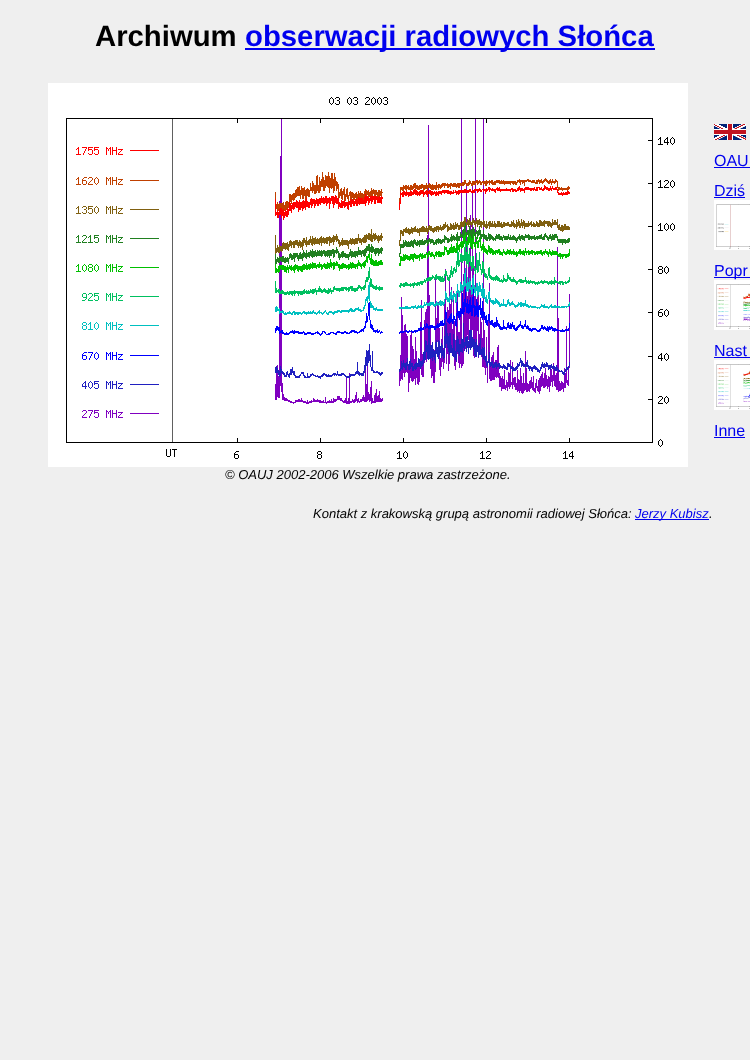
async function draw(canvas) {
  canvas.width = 750
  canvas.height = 1060
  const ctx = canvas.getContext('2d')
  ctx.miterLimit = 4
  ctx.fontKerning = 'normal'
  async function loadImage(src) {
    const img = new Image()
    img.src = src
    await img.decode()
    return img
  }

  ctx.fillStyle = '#efefef'
  ctx.fillRect(0, 0, 750, 1060)
  ctx.font = 'bold 29.3px Liberation Sans'
  ctx.fillStyle = '#000'
  ctx.fillText('Archiwum', 95, 46)
  ctx.fillStyle = '#00e'
  ctx.fillRect(245, 48, 410, 2)
  ctx.fillText('obserwacji radiowych Słońca', 245, 46)
  ctx.drawImage(await loadImage('image0.png'), 714, 124, 32, 16)
  ctx.font = '16px Liberation Sans'
  ctx.fillText('OAU', 714, 166)
  ctx.fillRect(714, 167, 36, 1)
  ctx.fillText('Dziś', 714, 196)
  ctx.fillRect(714, 197, 31, 1)
  ctx.drawImage(await loadImage('image1.png'), 714, 200, 36, 50)
  ctx.fillRect(714, 277, 36, 1)
  ctx.fillText('Popr', 714, 276)
  ctx.drawImage(await loadImage('image2.png'), 714, 280, 36, 50)
  ctx.fillText('Nast', 714, 356)
  ctx.fillRect(714, 357, 36, 1)
  ctx.drawImage(await loadImage('image3.png'), 714, 360, 36, 50)
  ctx.fillText('Inne', 714, 436)
  ctx.fillRect(714, 437, 31, 1)
  ctx.drawImage(await loadImage('image4.png'), 48, 83, 640, 384)
  ctx.font = 'italic 13px Liberation Sans'
  ctx.fillStyle = '#000'
  ctx.fillText('© OAUJ 2002-2006 Wszelkie prawa zastrzeżone.', 225, 479)
  ctx.fillText('Kontakt z krakowską grupą astronomii radiowej Słońca:', 313, 518)
  ctx.fillStyle = '#00e'
  ctx.fillRect(635, 519, 74, 1)
  ctx.fillText('Jerzy Kubisz', 635, 518)
  ctx.fillStyle = '#000'
  ctx.fillText('.', 709, 518)
}

draw(document.querySelector('canvas'))
